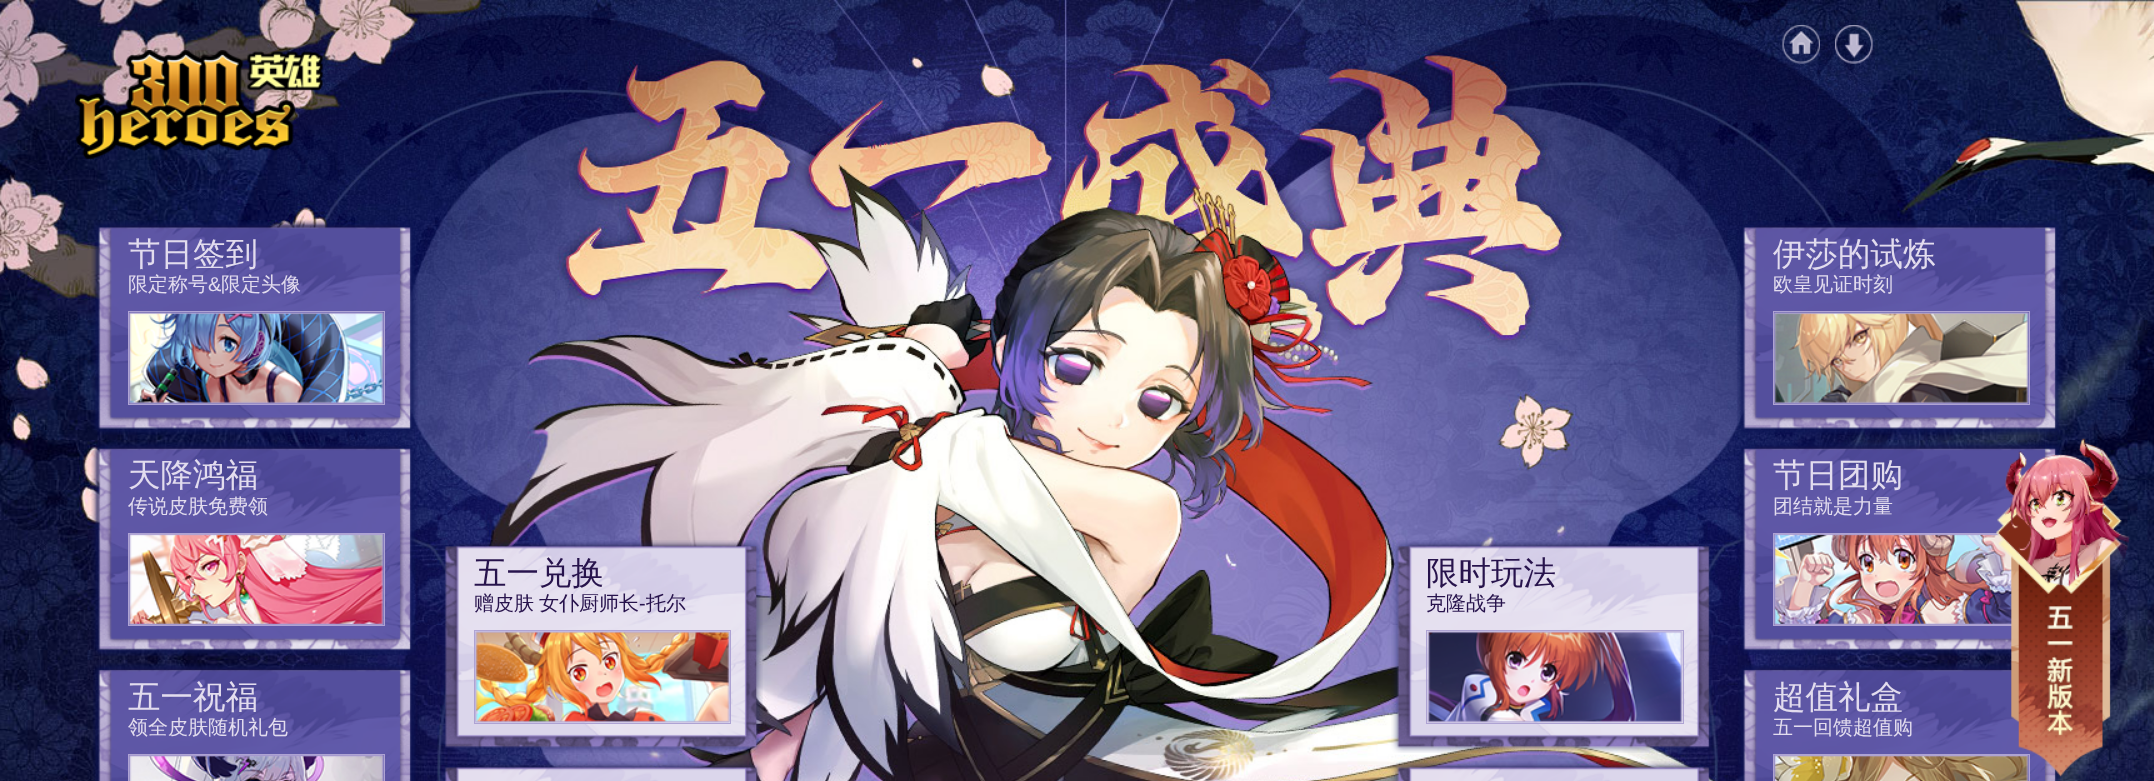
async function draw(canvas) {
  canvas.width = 2154
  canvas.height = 781
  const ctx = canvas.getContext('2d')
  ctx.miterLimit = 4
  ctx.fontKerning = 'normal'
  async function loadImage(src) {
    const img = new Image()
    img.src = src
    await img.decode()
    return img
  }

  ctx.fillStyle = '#fff'
  ctx.fillRect(0, 0, 2154, 781)
  ctx.drawImage(await loadImage('image3.png'), 0, 0, 2154, 781)
  ctx.drawImage(await loadImage('image4.png'), 277, 0, 1601, 625)
  ctx.drawImage(await loadImage('image0.png'), 1782, 25, 38, 39)
  ctx.drawImage(await loadImage('image1.png'), 1835, 25, 38, 39)
  ctx.drawImage(await loadImage('image2.png'), 75, 50, 248, 109)
  ctx.drawImage(await loadImage('image5.png'), 91, 219, 327, 216)
  ctx.font = '500 32.5px WenQuanYi Zen Hei'
  ctx.fillStyle = '#e2dcee'
  ctx.fillText('节日签到', 128, 265)
  ctx.font = '500 20px WenQuanYi Zen Hei'
  ctx.fillText('限定称号', 128, 291)
  ctx.font = '20px Liberation Sans'
  ctx.fillText('&', 208, 291)
  ctx.font = '500 20px WenQuanYi Zen Hei'
  ctx.fillText('限定头像', 221, 291)
  ctx.strokeStyle = '#aea3d3'
  ctx.strokeRect(128.5, 311.5, 256, 93)
  ctx.drawImage(await loadImage('image6.png'), 129, 312, 255, 92)
  ctx.drawImage(await loadImage('image7.png'), 1737, 221, 326, 214)
  ctx.font = '500 32.5px WenQuanYi Zen Hei'
  ctx.fillText('伊莎的试炼', 1773, 265)
  ctx.font = '500 20px WenQuanYi Zen Hei'
  ctx.fillText('欧皇见证时刻', 1773, 291)
  ctx.strokeRect(1773.5, 311.5, 256, 93)
  ctx.drawImage(await loadImage('image8.png'), 1774, 312, 255, 92)
  ctx.drawImage(await loadImage('image23.png'), 277, 625, 1601, 156)
  ctx.drawImage(await loadImage('image9.png'), 91, 442, 326, 214)
  ctx.font = '500 32.5px WenQuanYi Zen Hei'
  ctx.fillText('天降鸿福', 128, 486)
  ctx.font = '500 20px WenQuanYi Zen Hei'
  ctx.fillText('传说皮肤免费领', 128, 513)
  ctx.strokeRect(128.5, 533.5, 256, 92)
  ctx.drawImage(await loadImage('image10.png'), 129, 534, 255, 91)
  ctx.drawImage(await loadImage('image11.png'), 1737, 442, 325, 214)
  ctx.font = '500 32.5px WenQuanYi Zen Hei'
  ctx.fillText('节日团购', 1773, 486)
  ctx.font = '500 20px WenQuanYi Zen Hei'
  ctx.fillText('团结就是力量', 1773, 513)
  ctx.strokeRect(1773.5, 533.5, 256, 92)
  ctx.drawImage(await loadImage('image12.png'), 1774, 534, 238, 91)
  ctx.drawImage(await loadImage('image13.png'), 441, 540, 322, 213)
  ctx.font = '500 32.5px WenQuanYi Zen Hei'
  ctx.fillStyle = '#27134c'
  ctx.fillText('五一兑换', 474, 584)
  ctx.font = '500 20px WenQuanYi Zen Hei'
  ctx.fillText('赠皮肤', 474, 610)
  ctx.fillText('女仆厨师长', 539, 610)
  ctx.font = '20px Liberation Sans'
  ctx.fillText('-', 639, 610)
  ctx.font = '500 20px WenQuanYi Zen Hei'
  ctx.fillText('托尔', 646, 610)
  ctx.strokeRect(474.5, 630.5, 256, 93)
  ctx.drawImage(await loadImage('image14.png'), 475, 631, 255, 92)
  ctx.drawImage(await loadImage('image15.png'), 1391, 540, 321, 213)
  ctx.font = '500 32.5px WenQuanYi Zen Hei'
  ctx.fillText('限时玩法', 1426, 584)
  ctx.font = '500 20px WenQuanYi Zen Hei'
  ctx.fillText('克隆战争', 1426, 610)
  ctx.strokeRect(1426.5, 630.5, 257, 93)
  ctx.drawImage(await loadImage('image16.png'), 1427, 631, 256, 92)
  ctx.drawImage(await loadImage('image17.png'), 93, 663, 323, 118)
  ctx.font = '500 32.5px WenQuanYi Zen Hei'
  ctx.fillStyle = '#e2dcee'
  ctx.fillText('五一祝福', 128, 708)
  ctx.font = '500 20px WenQuanYi Zen Hei'
  ctx.fillText('领全皮肤随机礼包', 128, 734)
  ctx.strokeRect(128.5, 754.5, 256, 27)
  ctx.drawImage(await loadImage('image18.png'), 129, 755, 255, 26)
  ctx.drawImage(await loadImage('image19.png'), 1738, 663, 324, 118)
  ctx.font = '500 32.5px WenQuanYi Zen Hei'
  ctx.fillText('超值礼盒', 1773, 708)
  ctx.font = '500 20px WenQuanYi Zen Hei'
  ctx.fillText('五一回馈超值购', 1773, 734)
  ctx.strokeRect(1773.5, 754.5, 256, 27)
  ctx.drawImage(await loadImage('image20.png'), 1774, 755, 255, 26)
  ctx.drawImage(await loadImage('image21.png'), 443, 761, 320, 20)
  ctx.drawImage(await loadImage('image22.png'), 1391, 761, 322, 20)
  ctx.drawImage(await loadImage('image24.png'), 1996, 438, 134, 339)
}

draw(document.querySelector('canvas'))
